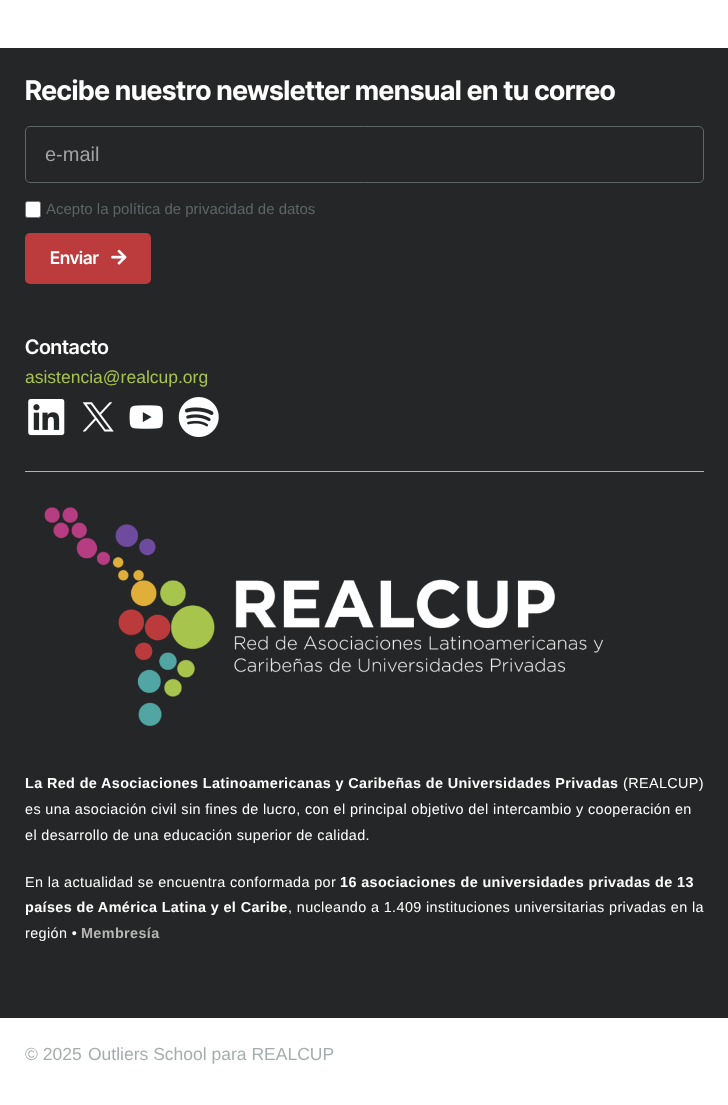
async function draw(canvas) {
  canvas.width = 728
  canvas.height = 1105
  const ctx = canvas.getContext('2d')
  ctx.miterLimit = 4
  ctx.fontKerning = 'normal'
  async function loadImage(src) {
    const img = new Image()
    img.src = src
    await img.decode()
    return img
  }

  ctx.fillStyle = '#fff'
  ctx.fillRect(0, 0, 728, 1105)
  ctx.fillStyle = '#242627'
  ctx.fillRect(0, 48, 728, 970)
  ctx.font = 'bold 27px Inter Tight'
  ctx.fillStyle = '#fff'
  ctx.fillText('Recibe nuestro newsletter mensual en tu correo', 25, 100)
  ctx.beginPath()
  ctx.roundRect(25.5, 126.5, 678, 56, 4.5)
  ctx.strokeStyle = '#5f6567'
  ctx.stroke()
  ctx.font = '20px Liberation Sans'
  ctx.fillStyle = '#a1a2a3'
  ctx.fillText('e-mail', 45, 161)
  ctx.fillStyle = '#fff'
  ctx.beginPath()
  ctx.roundRect(25.5, 201.5, 15, 16, 2)
  ctx.fill()
  ctx.strokeStyle = '#767676'
  ctx.stroke()
  ctx.font = '15px Liberation Sans'
  ctx.fillStyle = '#5f6567'
  ctx.fillText('Acepto la política de privacidad de datos', 46, 214)
  ctx.fillStyle = '#bc3b3c'
  ctx.beginPath()
  ctx.roundRect(25, 233, 126, 51, 5)
  ctx.fill()
  ctx.font = '600 17.5px Inter Tight'
  ctx.fillStyle = '#fff'
  ctx.fillText('Enviar', 50, 264)
  ctx.drawImage(await loadImage('image0.png'), 111, 249, 16, 16)
  ctx.font = '600 20px Inter Tight'
  ctx.fillText('Contacto', 25, 354)
  ctx.font = '17.5px Liberation Sans'
  ctx.fillStyle = '#a8c44d'
  ctx.fillText('asistencia@realcup.org', 25, 383)
  ctx.drawImage(await loadImage('image1.png'), 28, 399, 37, 37)
  ctx.drawImage(await loadImage('image2.png'), 83, 402, 31, 30)
  ctx.drawImage(await loadImage('image3.png'), 129, 405, 34, 24)
  ctx.drawImage(await loadImage('image4.png'), 178, 397, 41, 40)
  ctx.fillStyle = '#b0b1b1'
  ctx.fillRect(25, 471, 679, 1)
  ctx.drawImage(await loadImage('image5.png'), 44, 507, 559, 219)
  ctx.letterSpacing = '0.38px'
  ctx.font = 'bold 14.4px Liberation Sans'
  ctx.fillStyle = '#fff'
  ctx.fillText('La Red de Asociaciones Latinoamericanas y Caribeñas de Universidades Privadas', 25, 788)
  ctx.font = '14.4px Liberation Sans'
  ctx.fillText('(REALCUP)', 623, 788)
  ctx.fillText('es una asociación civil sin fines de lucro, con el principal objetivo del intercambio y cooperación en', 25, 814)
  ctx.fillText('el desarrollo de una educación superior de calidad.', 25, 840)
  ctx.fillText('En la actualidad se encuentra conformada por', 25, 887)
  ctx.font = 'bold 14.4px Liberation Sans'
  ctx.fillText('16 asociaciones de universidades privadas de 13', 340, 887)
  ctx.fillText('países de América Latina y el Caribe', 25, 912)
  ctx.font = '14.4px Liberation Sans'
  ctx.fillText(', nucleando a 1.409 instituciones universitarias privadas en la', 288, 912)
  ctx.fillText('región •', 25, 938)
  ctx.font = 'bold 14.4px Liberation Sans'
  ctx.fillStyle = '#b6b7b4'
  ctx.fillText('Membresía', 81, 938)
  ctx.letterSpacing = '0px'
  ctx.font = '17.5px Liberation Sans'
  ctx.fillStyle = '#a6acac'
  ctx.fillText('© 2025', 25, 1060)
  ctx.fillText('Outliers School para REALCUP', 88, 1060)
}

draw(document.querySelector('canvas'))
